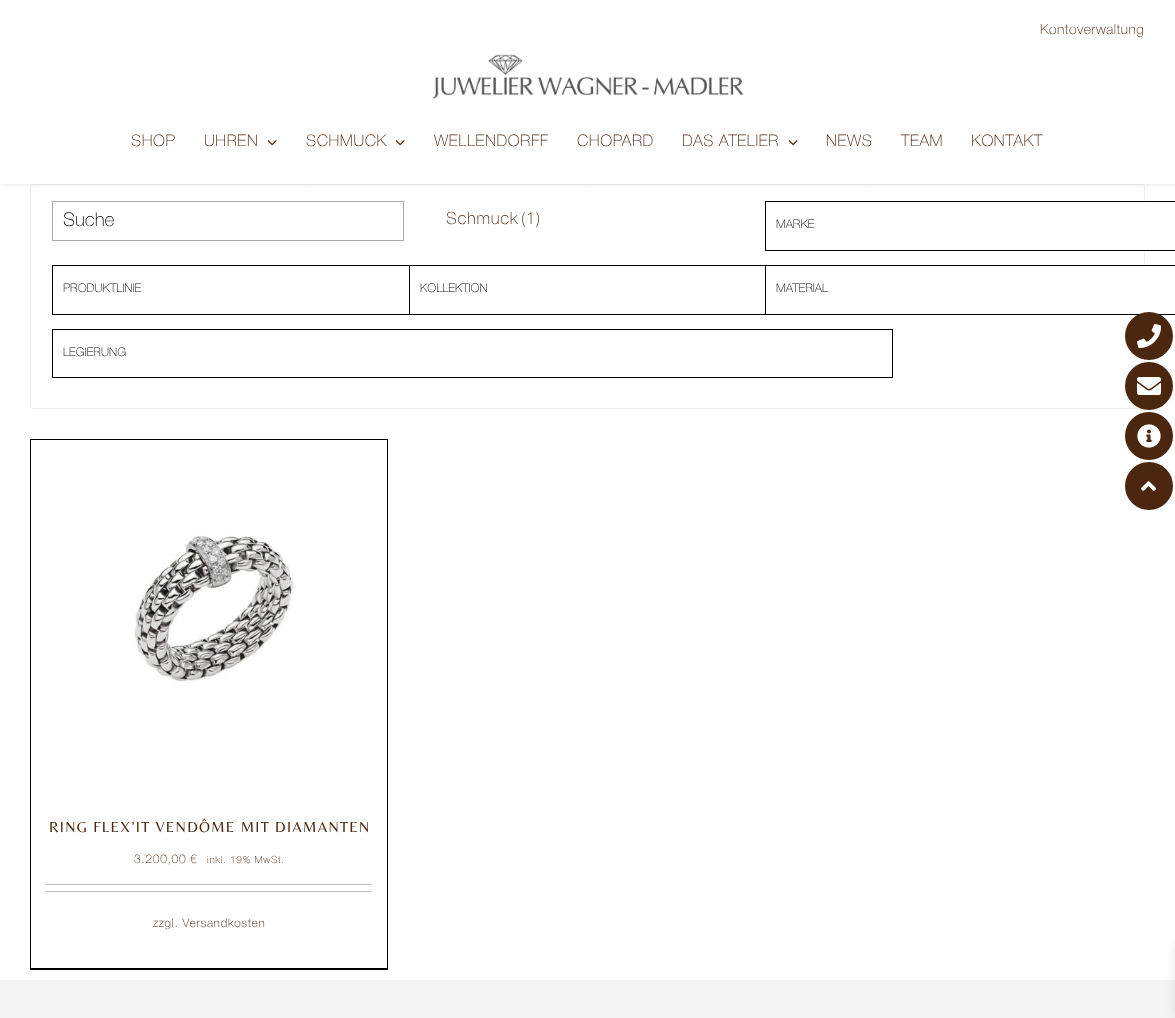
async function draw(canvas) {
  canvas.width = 1175
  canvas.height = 1018
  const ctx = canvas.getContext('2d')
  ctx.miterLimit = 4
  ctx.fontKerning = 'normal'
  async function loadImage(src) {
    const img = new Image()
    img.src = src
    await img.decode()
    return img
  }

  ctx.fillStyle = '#fff'
  ctx.fillRect(0, 0, 1175, 1018)
  ctx.beginPath()
  ctx.roundRect(30.5, 184.5, 1114, 224, 2.5)
  ctx.strokeStyle = '#eee'
  ctx.stroke()
  ctx.save()
  ctx.beginPath()
  ctx.rect(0, 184, 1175, 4)
  ctx.clip()
  ctx.fillStyle = '#c1c1c1'
  ctx.filter = 'blur(3px)'
  ctx.beginPath()
  ctx.rect(2, -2, 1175, 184)
  ctx.fill()
  ctx.filter = 'none'
  ctx.restore()
  ctx.letterSpacing = '0.5px'
  ctx.font = '100 14px Helvetica Neue'
  ctx.fillStyle = '#4c270f'
  ctx.fillText('Kontoverwaltung', 1040, 34)
  ctx.drawImage(await loadImage('image0.png'), 432, 54, 312, 45)
  ctx.letterSpacing = '0.6px'
  ctx.font = '100 16px Helvetica Neue'
  ctx.fillText('SHOP', 131, 146)
  ctx.fillText('UHREN', 204, 146)
  ctx.drawImage(await loadImage('image1.png'), 267, 140, 10, 6)
  ctx.fillText('SCHMUCK', 306, 146)
  ctx.drawImage(await loadImage('image1.png'), 395, 140, 10, 6)
  ctx.fillText('WELLENDORFF', 434, 146)
  ctx.fillText('CHOPARD', 577, 146)
  ctx.fillText('DAS ATELIER', 682, 146)
  ctx.drawImage(await loadImage('image1.png'), 788, 140, 10, 6)
  ctx.fillText('NEWS', 826, 146)
  ctx.fillText('TEAM', 901, 146)
  ctx.fillText('KONTAKT', 971, 146)
  ctx.strokeStyle = '#aaa'
  ctx.strokeRect(52.5, 201.5, 351, 39)
  ctx.letterSpacing = '0px'
  ctx.font = '100 19px Helvetica Neue'
  ctx.fillStyle = '#000'
  ctx.fillText('Suche', 63, 226)
  ctx.letterSpacing = '0.7px'
  ctx.font = '100 17px Helvetica Neue'
  ctx.fillStyle = '#4c270f'
  ctx.fillText('Schmuck', 446, 224)
  ctx.fillText('(1)', 521, 224)
  ctx.fillStyle = '#fff'
  ctx.fillRect(1144, 202, 1, 48)
  ctx.strokeStyle = '#000'
  ctx.strokeRect(765.5, 201.5, 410, 49)
  ctx.letterSpacing = '0px'
  ctx.font = '100 12px Helvetica Neue'
  ctx.fillStyle = '#000'
  ctx.fillText('MARKE', 776, 228)
  ctx.strokeRect(52.5, 265.5, 840, 49)
  ctx.fillText('PRODUKTLINIE', 63, 292)
  ctx.strokeRect(409.5, 265.5, 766, 49)
  ctx.fillText('KOLLEKTION', 420, 292)
  ctx.fillStyle = '#fff'
  ctx.fillRect(892, 266, 253, 48)
  ctx.strokeRect(765.5, 265.5, 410, 49)
  ctx.fillStyle = '#000'
  ctx.fillText('MATERIAL', 776, 292)
  ctx.strokeRect(52.5, 329.5, 840, 48)
  ctx.fillText('LEGIERUNG', 63, 356)
  ctx.fillRect(30, 439, 358, 1)
  ctx.fillRect(387, 439, 1, 531)
  ctx.fillRect(30, 968, 358, 2)
  ctx.fillRect(30, 439, 1, 531)
  ctx.drawImage(await loadImage('image2.png'), 133, 535, 161, 148)
  ctx.letterSpacing = '1.3px'
  ctx.font = '15px Belleza'
  ctx.fillStyle = '#4c270f'
  ctx.fillText('RING FLEX’IT VENDÔME MIT DIAMANTEN', 49, 832)
  ctx.letterSpacing = '0.7px'
  ctx.font = '100 12px Helvetica Neue'
  ctx.fillText('3.200,00 €', 134, 863)
  ctx.font = '100 10px Helvetica Neue'
  ctx.fillText('inkl. 19% MwSt.', 207, 863)
  ctx.fillStyle = '#c1c1c1'
  ctx.fillRect(46, 884, 326, 1)
  ctx.fillRect(46, 891, 326, 1)
  ctx.font = '100 12px Helvetica Neue'
  ctx.fillStyle = '#4c270f'
  ctx.fillText('zzgl. Versandkosten', 153, 927)
  ctx.fillStyle = '#f4f4f4'
  ctx.fillRect(0, 980, 1175, 38)
  ctx.fillStyle = '#4c270f'
  ctx.beginPath()
  ctx.arc(1149, 336, 24, 0, 2 * Math.PI)
  ctx.fill()
  ctx.drawImage(await loadImage('image3.png'), 1137, 324, 25, 24)
  ctx.beginPath()
  ctx.arc(1149, 386, 24, 0, 2 * Math.PI)
  ctx.fill()
  ctx.drawImage(await loadImage('image4.png'), 1137, 377, 24, 18)
  ctx.beginPath()
  ctx.arc(1149, 436, 24, 0, 2 * Math.PI)
  ctx.fill()
  ctx.drawImage(await loadImage('image5.png'), 1137, 424, 24, 24)
  ctx.beginPath()
  ctx.arc(1149, 486, 24, 0, 2 * Math.PI)
  ctx.fill()
  ctx.drawImage(await loadImage('image6.png'), 1141, 481, 15, 10)
  ctx.fillStyle = '#0000001a'
  ctx.filter = 'blur(5px)'
  ctx.beginPath()
  ctx.rect(1175, 943, 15, 74)
  ctx.fill()
  ctx.filter = 'none'
}

draw(document.querySelector('canvas'))
